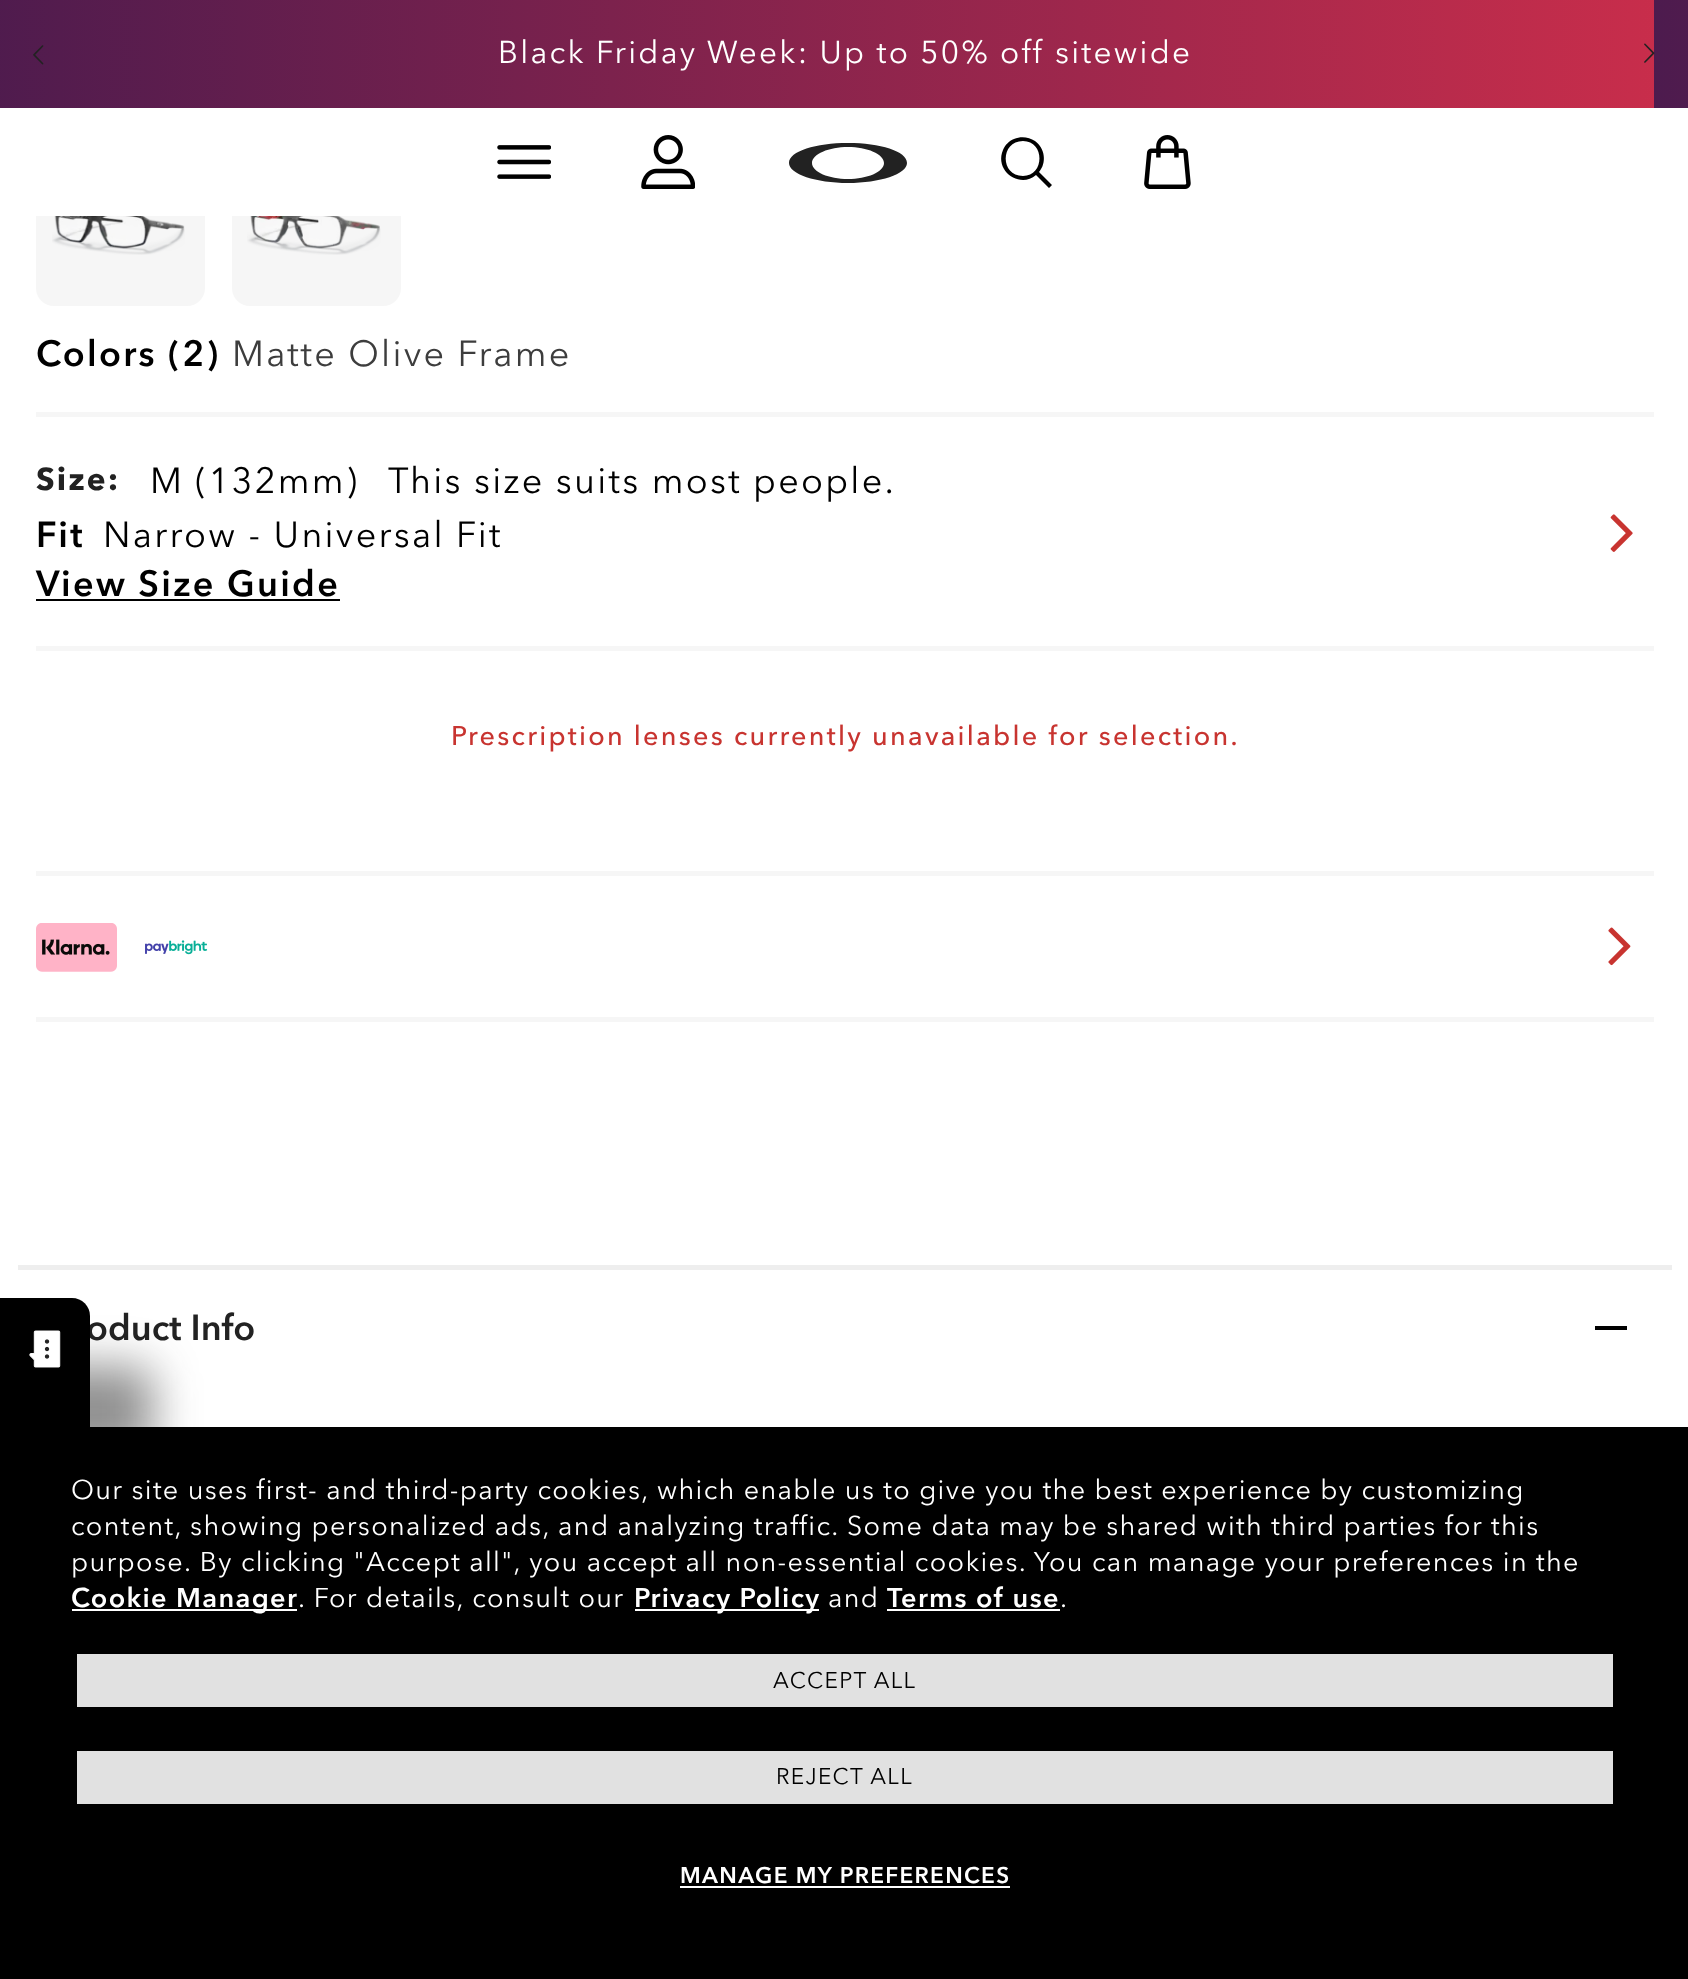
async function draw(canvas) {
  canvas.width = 1688
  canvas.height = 1979
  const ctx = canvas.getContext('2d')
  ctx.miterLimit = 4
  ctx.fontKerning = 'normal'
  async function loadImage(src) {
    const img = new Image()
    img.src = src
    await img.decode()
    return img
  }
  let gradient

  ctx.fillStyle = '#fff'
  ctx.fillRect(0, 0, 1688, 1979)
  gradient = ctx.createLinearGradient(-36, 54, 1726, 54)
  gradient.addColorStop(0, '#4d1b4e')
  gradient.addColorStop(1, '#cd2e4b')
  ctx.fillStyle = gradient
  ctx.fillRect(0, 0, 1654, 108)
  ctx.letterSpacing = '2.25px'
  ctx.font = '31.5px Avenir Next'
  ctx.fillStyle = '#fff'
  ctx.fillText('Black Friday Week: Up to 50% off sitewide', 498, 63)
  gradient = ctx.createLinearGradient(1654, 54, 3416, 54)
  gradient.addColorStop(0, '#4d1b4e')
  gradient.addColorStop(1, '#cd2e4b')
  ctx.fillStyle = gradient
  ctx.fillRect(1654, 0, 34, 108)
  ctx.drawImage(await loadImage('image0.png'), 33, 45, 11, 20)
  ctx.drawImage(await loadImage('image1.png'), 1644, 43, 11, 20)
  ctx.fillStyle = '#f6f6f6'
  ctx.beginPath()
  ctx.roundRect(36, 137, 169, 169, 18)
  ctx.fill()
  ctx.beginPath()
  ctx.roundRect(232, 137, 169, 169, 18)
  ctx.fill()
  ctx.fillStyle = '#fff'
  ctx.fillRect(36, 137, 365, 79)
  ctx.drawImage(await loadImage('image2.png'), 497, 145, 54, 34)
  ctx.drawImage(await loadImage('image3.png'), 641, 135, 54, 54)
  ctx.fillStyle = '#222'
  ctx.beginPath()
  ctx.moveTo(848, 179)
  ctx.bezierCurveTo(829, 179, 812, 172, 812, 163)
  ctx.bezierCurveTo(812, 154, 829, 147, 848, 147)
  ctx.bezierCurveTo(867, 147, 884, 154, 884, 163)
  ctx.bezierCurveTo(884, 172, 867, 179, 848, 179)
  ctx.closePath()
  ctx.moveTo(848, 143)
  ctx.bezierCurveTo(816, 143, 789, 151, 789, 163)
  ctx.bezierCurveTo(789, 174, 816, 183, 848, 183)
  ctx.bezierCurveTo(880, 183, 907, 174, 907, 163)
  ctx.bezierCurveTo(907, 151, 880, 143, 848, 143)
  ctx.closePath()
  ctx.fill('evenodd')
  ctx.fillStyle = '#000'
  ctx.beginPath()
  ctx.moveTo(1052, 185)
  ctx.lineTo(1039, 172)
  ctx.bezierCurveTo(1047, 163, 1045, 148, 1035, 141)
  ctx.bezierCurveTo(1029, 137, 1021, 136, 1014, 139)
  ctx.bezierCurveTo(1009, 141, 1005, 145, 1003, 150)
  ctx.bezierCurveTo(994, 171, 1020, 189, 1036, 175)
  ctx.lineTo(1049, 188)
  ctx.closePath()
  ctx.moveTo(1023, 176)
  ctx.bezierCurveTo(1000, 176, 1000, 141, 1023, 141)
  ctx.bezierCurveTo(1045, 141, 1045, 176, 1023, 176)
  ctx.closePath()
  ctx.fill()
  ctx.drawImage(await loadImage('image4.png'), 1144, 135, 47, 54)
  ctx.fillStyle = '#f6f6f6'
  ctx.fillRect(36, 412, 1618, 5)
  ctx.drawImage(await loadImage('image5.png'), 52, 216, 133, 39)
  ctx.drawImage(await loadImage('image6.png'), 247, 216, 134, 39)
  ctx.font = '600 36px Avenir Next'
  ctx.fillStyle = '#000'
  ctx.fillText('Colors (2)', 36, 366)
  ctx.font = '36px Avenir Next'
  ctx.fillStyle = '#3d3d3d'
  ctx.fillText('Matte Olive Frame', 232, 366)
  ctx.fillStyle = '#f6f6f6'
  ctx.fillRect(36, 646, 1618, 5)
  ctx.font = 'bold 31.5px Avenir Next'
  ctx.fillStyle = '#222'
  ctx.fillText('Size:', 36, 490)
  ctx.font = '36px Avenir Next'
  ctx.fillStyle = '#000'
  ctx.fillText('M (132mm)', 150, 493)
  ctx.fillText('This size suits most people.', 388, 493)
  ctx.font = '600 36px Avenir Next'
  ctx.fillText('Fit', 36, 547)
  ctx.font = '36px Avenir Next'
  ctx.fillText('Narrow - Universal Fit', 103, 547)
  ctx.drawImage(await loadImage('image7.png'), 1610, 514, 23, 38)
  ctx.font = '600 36px Avenir Next'
  ctx.fillText('View Size Guide', 36, 596)
  ctx.fillRect(36, 599, 304, 2)
  ctx.font = '500 27px Avenir Next'
  ctx.fillStyle = '#c83430'
  ctx.fillText('Prescription lenses currently unavailable for selection.', 451, 745)
  ctx.fillStyle = '#f6f6f6'
  ctx.fillRect(36, 871, 1618, 5)
  ctx.fillRect(36, 1017, 1618, 5)
  ctx.drawImage(await loadImage('image8.png'), 36, 923, 81, 49)
  ctx.drawImage(await loadImage('image9.png'), 145, 940, 63, 15)
  ctx.drawImage(await loadImage('image10.png'), 1608, 927, 23, 39)
  ctx.fillStyle = '#eee'
  ctx.fillRect(18, 1265, 1654, 5)
  ctx.letterSpacing = '0px'
  ctx.font = '600 36px Avenir Next'
  ctx.fillStyle = '#222'
  ctx.fillText('oduct Info', 86, 1340)
  ctx.fillStyle = '#000'
  ctx.fillRect(1595, 1326, 32, 4)
  ctx.fillStyle = '#22222280'
  ctx.filter = 'blur(22.5px)'
  ctx.beginPath()
  ctx.roundRect(-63, 1366, 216, 90, 18)
  ctx.fill()
  ctx.filter = 'none'
  ctx.fillStyle = '#000'
  ctx.beginPath()
  ctx.moveTo(90, 1316)
  ctx.lineTo(90, 1496)
  ctx.bezierCurveTo(90, 1506, 82, 1514, 72, 1514)
  ctx.lineTo(0, 1514)
  ctx.lineTo(0, 1298)
  ctx.lineTo(72, 1298)
  ctx.bezierCurveTo(82, 1298, 90, 1306, 90, 1316)
  ctx.closePath()
  ctx.fill()
  ctx.drawImage(await loadImage('image11.png'), 29, 1330, 32, 38)
  ctx.fillRect(0, 1427, 1688, 552)
  ctx.letterSpacing = '1.35px'
  ctx.font = '27px Avenir Next'
  ctx.fillStyle = '#fff'
  ctx.fillText('Our site uses first- and third-party cookies, which enable us to give you the best experience by customizing', 71, 1499)
  ctx.fillText('content, showing personalized ads, and analyzing traffic. Some data may be shared with third parties for this', 71, 1535)
  ctx.fillText('purpose. By clicking "Accept all", you accept all non-essential cookies. You can manage your preferences in the', 71, 1571)
  ctx.fillRect(72, 1609, 225, 2)
  ctx.font = '600 27px Avenir Next'
  ctx.fillText('Cookie Manager', 71, 1607)
  ctx.font = '27px Avenir Next'
  ctx.fillText('. For details, consult our', 298, 1607)
  ctx.fillRect(635, 1609, 184, 2)
  ctx.font = '600 27px Avenir Next'
  ctx.fillText('Privacy Policy', 634, 1607)
  ctx.font = '27px Avenir Next'
  ctx.fillText('and', 828, 1607)
  ctx.font = '600 27px Avenir Next'
  ctx.fillText('Terms of use', 887, 1607)
  ctx.font = '27px Avenir Next'
  ctx.fillText('.', 1060, 1607)
  ctx.fillRect(887, 1609, 173, 2)
  ctx.fillStyle = '#e1e1e1'
  ctx.fillRect(77, 1654, 1536, 53)
  ctx.font = '22.5px Avenir Next'
  ctx.fillStyle = '#000'
  ctx.fillText('ACCEPT ALL', 773, 1688)
  ctx.fillStyle = '#e1e1e1'
  ctx.fillRect(77, 1751, 1536, 53)
  ctx.fillStyle = '#000'
  ctx.fillText('REJECT ALL', 776, 1784)
  ctx.font = '600 22.5px Avenir Next'
  ctx.fillStyle = '#fff'
  ctx.fillText('MANAGE MY PREFERENCES', 680, 1883)
  ctx.fillRect(680, 1886, 330, 2)
}

draw(document.querySelector('canvas'))
